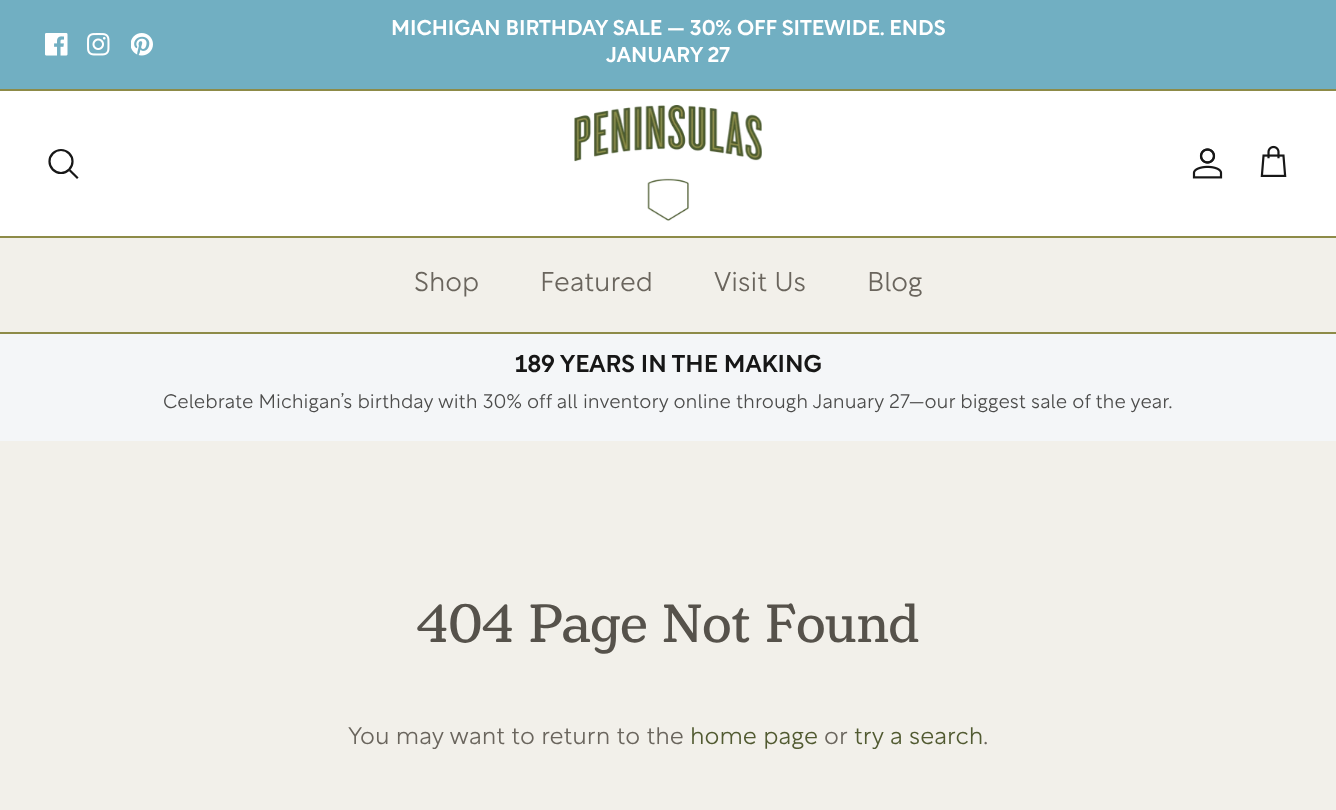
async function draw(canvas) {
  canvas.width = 1336
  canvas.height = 810
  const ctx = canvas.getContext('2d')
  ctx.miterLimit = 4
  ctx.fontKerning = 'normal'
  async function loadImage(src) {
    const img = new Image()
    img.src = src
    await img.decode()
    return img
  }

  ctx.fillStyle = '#f2f0ea'
  ctx.fillRect(0, 0, 1336, 810)
  ctx.fillStyle = '#71afc2'
  ctx.fillRect(0, 0, 1336, 89)
  ctx.drawImage(await loadImage('image0.png'), 45, 33, 23, 23)
  ctx.drawImage(await loadImage('image1.png'), 87, 33, 23, 23)
  ctx.drawImage(await loadImage('image2.png'), 131, 33, 22, 23)
  ctx.font = '500 21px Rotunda'
  ctx.fillStyle = '#fff'
  ctx.fillText('MICHIGAN BIRTHDAY SALE — 30% OFF SITEWIDE. ENDS', 391, 35)
  ctx.fillText('JANUARY 27', 606, 62)
  ctx.fillRect(0, 91, 1336, 145)
  ctx.fillStyle = '#8d8b48'
  ctx.fillRect(0, 89, 1336, 2)
  ctx.fillRect(0, 236, 1336, 2)
  ctx.beginPath()
  ctx.arc(61, 161.5, 11.5, 0, 2 * Math.PI)
  ctx.strokeStyle = '#171717'
  ctx.lineWidth = 2.2
  ctx.stroke()
  ctx.beginPath()
  ctx.moveTo(70.5, 171)
  ctx.lineTo(77, 177.5)
  ctx.lineCap = 'square'
  ctx.stroke()
  ctx.drawImage(await loadImage('image3.png'), 574, 105, 188, 116)
  ctx.drawImage(await loadImage('image4.png'), 1192, 148, 31, 31)
  ctx.drawImage(await loadImage('image5.png'), 1260, 145, 27, 32)
  ctx.fillRect(0, 332, 1336, 2)
  ctx.font = '300 27px Rotunda'
  ctx.fillStyle = '#6a655d'
  ctx.fillText('Shop', 414, 291)
  ctx.fillText('Featured', 540, 291)
  ctx.fillText('Visit Us', 714, 291)
  ctx.fillText('Blog', 867, 291)
  ctx.fillStyle = '#f4f6f8'
  ctx.fillRect(0, 334, 1336, 107)
  ctx.font = '500 24px Rotunda'
  ctx.fillStyle = '#171717'
  ctx.fillText('189 YEARS IN THE MAKING', 515, 372)
  ctx.font = '300 19.5px Rotunda'
  ctx.fillStyle = '#4c4c4b'
  ctx.fillText('Celebrate Michigan’s birthday with 30% off all inventory online through January 27—our biggest sale of the year.', 163, 408)
  ctx.font = '57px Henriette'
  ctx.fillStyle = '#56524b'
  ctx.fillText('404 Page Not Found', 417, 642)
  ctx.font = '300 24px Rotunda'
  ctx.fillStyle = '#6a655d'
  ctx.fillText('You may want to return to the', 348, 744)
  ctx.fillStyle = '#515a31'
  ctx.fillText('home page', 690, 744)
  ctx.fillStyle = '#6a655d'
  ctx.fillText('or', 824, 744)
  ctx.fillStyle = '#515a31'
  ctx.fillText('try a search', 854, 744)
  ctx.fillStyle = '#6a655d'
  ctx.fillText('.', 983, 744)
}

draw(document.querySelector('canvas'))
